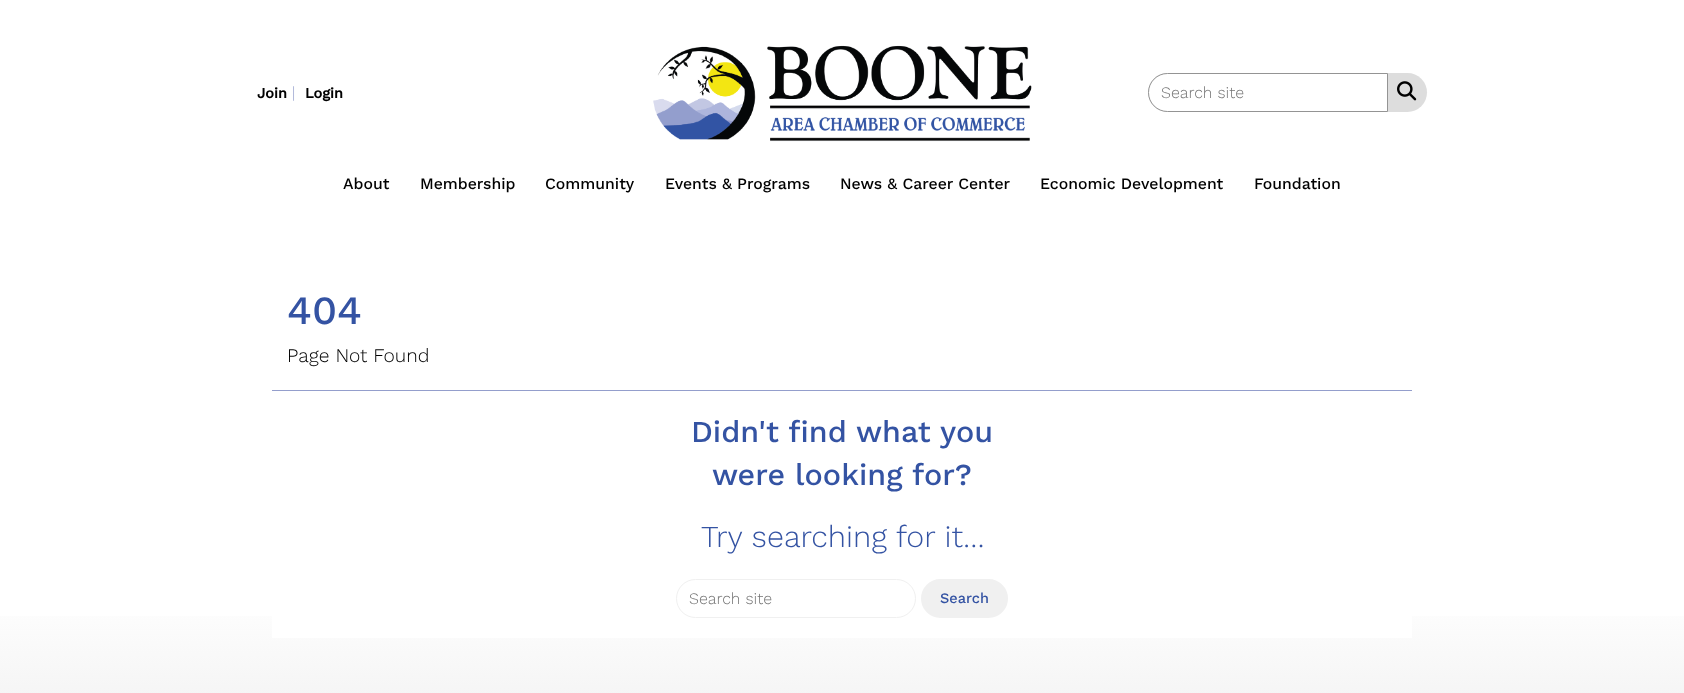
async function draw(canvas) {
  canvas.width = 1684
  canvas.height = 693
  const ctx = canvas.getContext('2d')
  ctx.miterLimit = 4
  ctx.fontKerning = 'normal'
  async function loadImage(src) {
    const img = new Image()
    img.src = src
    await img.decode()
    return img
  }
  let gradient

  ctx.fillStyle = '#fff'
  ctx.fillRect(0, 0, 1684, 693)
  ctx.font = 'bold 14.5px Work Sans'
  ctx.fillStyle = '#010101'
  ctx.fillText('Join', 257, 98)
  ctx.font = '300 16px Work Sans'
  ctx.fillStyle = '#949ecc'
  ctx.fillText('|', 292, 98)
  ctx.font = 'bold 14.5px Work Sans'
  ctx.fillStyle = '#010101'
  ctx.fillText('Login', 305, 98)
  ctx.drawImage(await loadImage('image0.png'), 653, 45, 379, 97)
  ctx.fillStyle = '#ddd'
  ctx.beginPath()
  ctx.roundRect(1148, 73, 279, 39, 19.5)
  ctx.fill()
  ctx.fillStyle = '#fff'
  ctx.beginPath()
  ctx.roundRect(1148.5, 73.5, 239, 38, [19, 0, 0, 19])
  ctx.fill()
  ctx.strokeStyle = '#949494'
  ctx.stroke()
  ctx.font = '300 16px Work Sans'
  ctx.fillStyle = '#757575'
  ctx.fillText('Search site', 1161, 98)
  ctx.drawImage(await loadImage('image1.png'), 1397, 81, 20, 20)
  ctx.font = '500 15.8px Work Sans'
  ctx.fillStyle = '#010101'
  ctx.fillText('About', 343, 189)
  ctx.fillText('Membership', 420, 189)
  ctx.fillText('Community', 545, 189)
  ctx.fillText('Events & Programs', 665, 189)
  ctx.fillText('News & Career Center', 840, 189)
  ctx.fillText('Economic Development', 1040, 189)
  ctx.fillText('Foundation', 1254, 189)
  gradient = ctx.createLinearGradient(842, 261, 842, 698)
  gradient.addColorStop(0, '#fff')
  gradient.addColorStop(0.75, '#fff')
  gradient.addColorStop(1, '#f5f5f5')
  ctx.fillStyle = gradient
  ctx.fillRect(0, 616, 1684, 77)
  ctx.fillStyle = '#949ecc'
  ctx.fillRect(272, 390, 1140, 1)
  ctx.font = '500 40px Work Sans'
  ctx.fillStyle = '#3453a3'
  ctx.fillText('404', 287, 324)
  ctx.font = '300 19.25px Work Sans'
  ctx.fillStyle = '#010101'
  ctx.fillText('Page Not Found', 287, 362)
  ctx.fillStyle = '#fff'
  ctx.fillRect(272, 616, 1140, 22)
  ctx.font = '500 30.5px Work Sans'
  ctx.fillStyle = '#3453a3'
  ctx.fillText('Didn\'t find what you', 691, 442)
  ctx.fillText('were looking for?', 712, 485)
  ctx.font = '300 30.5px Work Sans'
  ctx.fillText('Try searching for it…', 701, 547)
  ctx.beginPath()
  ctx.roundRect(676.5, 579.5, 239, 38, 19)
  ctx.strokeStyle = '#f0f0f0'
  ctx.stroke()
  ctx.font = '300 16px Work Sans'
  ctx.fillStyle = '#757575'
  ctx.fillText('Search site', 689, 604)
  ctx.fillStyle = '#f0f0f0'
  ctx.beginPath()
  ctx.roundRect(922, 580, 85, 37, 18.5)
  ctx.fill()
  ctx.lineWidth = 2
  ctx.stroke()
  ctx.font = '500 14.5px Work Sans'
  ctx.fillStyle = '#3453a3'
  ctx.fillText('Search', 940, 603)
}

draw(document.querySelector('canvas'))
